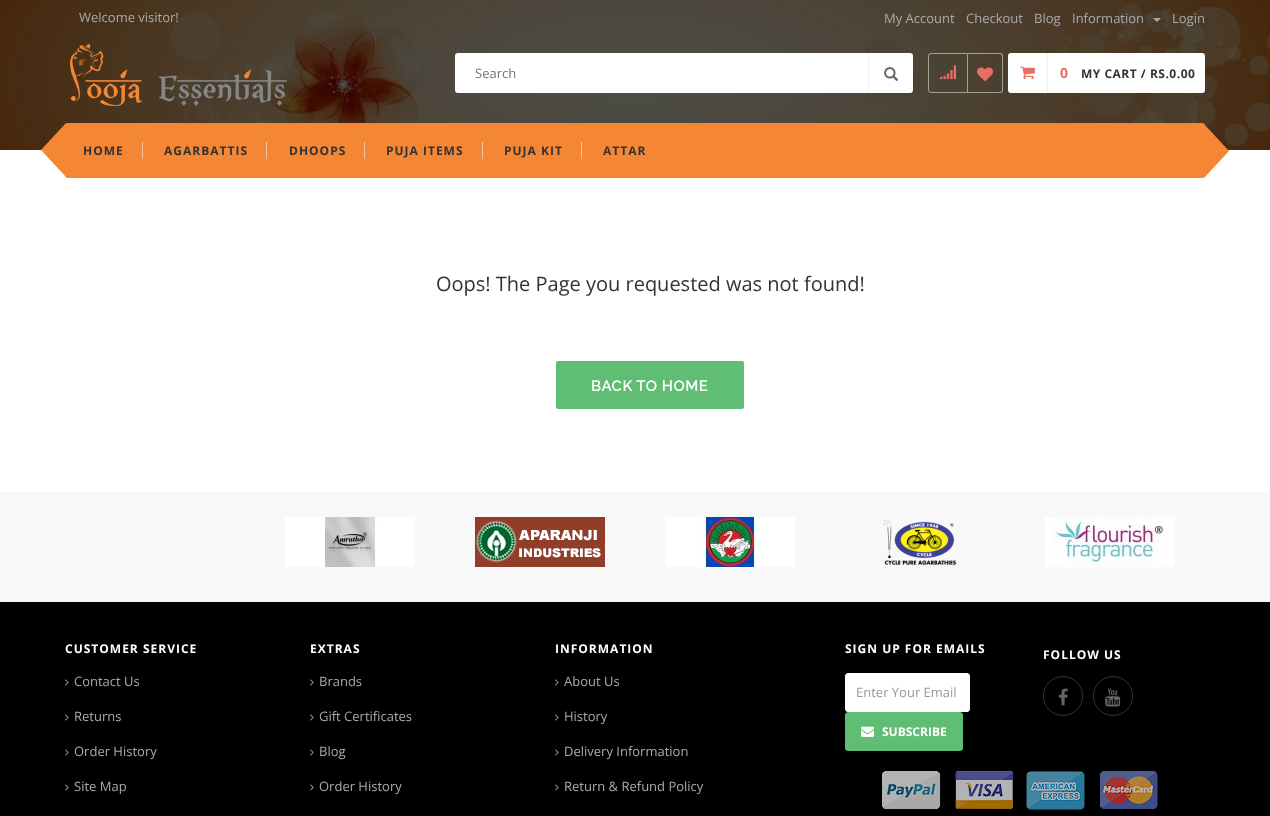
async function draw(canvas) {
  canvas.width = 1270
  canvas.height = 816
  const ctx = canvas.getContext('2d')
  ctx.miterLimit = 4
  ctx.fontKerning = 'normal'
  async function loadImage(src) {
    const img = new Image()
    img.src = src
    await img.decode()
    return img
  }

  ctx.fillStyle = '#fff'
  ctx.fillRect(0, 0, 1270, 816)
  ctx.drawImage(await loadImage('image0.png'), 0, 0, 1270, 150)
  ctx.font = '13px Open Sans'
  ctx.fillStyle = '#aaa'
  ctx.fillText('Welcome visitor!', 79, 22)
  ctx.fillText('My Account', 884, 23)
  ctx.fillText('Checkout', 966, 23)
  ctx.fillText('Blog', 1034, 23)
  ctx.fillText('Information', 1072, 23)
  ctx.beginPath()
  ctx.moveTo(1153, 18)
  ctx.lineTo(1161, 18)
  ctx.lineTo(1157, 22)
  ctx.closePath()
  ctx.fill()
  ctx.fillText('Login', 1172, 23)
  ctx.drawImage(await loadImage('image1.png'), 70, 44, 217, 62)
  ctx.fillStyle = '#fff'
  ctx.beginPath()
  ctx.roundRect(455, 53, 458, 40, 3)
  ctx.fill()
  ctx.fillStyle = '#757575'
  ctx.fillText('Search', 475, 78)
  ctx.fillStyle = '#f1f1f1'
  ctx.fillRect(868, 53, 1, 40)
  ctx.drawImage(await loadImage('image2.png'), 884, 67, 15, 14)
  ctx.beginPath()
  ctx.roundRect(928.5, 53.5, 39, 39, [2.5, 0, 0, 2.5])
  ctx.strokeStyle = '#ffffff80'
  ctx.stroke()
  ctx.drawImage(await loadImage('image3.png'), 940, 65, 16, 15)
  ctx.fillStyle = '#ffffff80'
  ctx.beginPath()
  ctx.moveTo(968, 53)
  ctx.lineTo(1000, 53)
  ctx.bezierCurveTo(1002, 53, 1003, 54, 1003, 56)
  ctx.lineTo(1003, 90)
  ctx.bezierCurveTo(1003, 92, 1002, 93, 1000, 93)
  ctx.lineTo(968, 93)
  ctx.closePath()
  ctx.moveTo(968, 54)
  ctx.lineTo(1000, 54)
  ctx.bezierCurveTo(1001, 54, 1002, 55, 1002, 56)
  ctx.lineTo(1002, 90)
  ctx.bezierCurveTo(1002, 91, 1001, 92, 1000, 92)
  ctx.lineTo(968, 92)
  ctx.closePath()
  ctx.fill('evenodd')
  ctx.drawImage(await loadImage('image4.png'), 977, 67, 16, 14)
  ctx.fillStyle = '#fff'
  ctx.beginPath()
  ctx.roundRect(1008, 53, 197, 40, 3)
  ctx.fill()
  ctx.fillStyle = '#f1f1f1'
  ctx.fillRect(1047, 53, 1, 40)
  ctx.drawImage(await loadImage('image5.png'), 1020, 66, 15, 14)
  ctx.letterSpacing = '0.5px'
  ctx.font = 'bold 14px Open Sans'
  ctx.fillStyle = '#e76d66'
  ctx.fillText('0', 1060, 78)
  ctx.font = 'bold 12px Open Sans'
  ctx.fillStyle = '#333'
  ctx.fillText('MY CART / RS.0.00', 1081, 78)
  ctx.fillStyle = '#f58634'
  ctx.beginPath()
  ctx.roundRect(65, 123, 1140, 55, 3)
  ctx.fill()
  ctx.beginPath()
  ctx.moveTo(66, 123)
  ctx.lineTo(66, 177)
  ctx.lineTo(41, 150)
  ctx.closePath()
  ctx.fill()
  ctx.fillStyle = '#fac39a'
  ctx.fillRect(142, 142, 1, 17)
  ctx.letterSpacing = '1px'
  ctx.fillStyle = '#333'
  ctx.fillText('HOME', 83, 155)
  ctx.fillStyle = '#fac39a'
  ctx.fillRect(266, 142, 1, 17)
  ctx.fillStyle = '#333'
  ctx.fillText('AGARBATTIS', 164, 155)
  ctx.fillStyle = '#fac39a'
  ctx.fillRect(364, 142, 1, 17)
  ctx.fillStyle = '#333'
  ctx.fillText('DHOOPS', 289, 155)
  ctx.fillStyle = '#fac39a'
  ctx.fillRect(482, 142, 1, 17)
  ctx.fillStyle = '#333'
  ctx.fillText('PUJA ITEMS', 386, 155)
  ctx.fillStyle = '#fac39a'
  ctx.fillRect(581, 142, 1, 17)
  ctx.fillStyle = '#333'
  ctx.fillText('PUJA KIT', 504, 155)
  ctx.fillText('ATTAR', 603, 155)
  ctx.fillStyle = '#f58634'
  ctx.beginPath()
  ctx.moveTo(1204, 178)
  ctx.lineTo(1204, 124)
  ctx.lineTo(1229, 151)
  ctx.closePath()
  ctx.fill()
  ctx.letterSpacing = '0px'
  ctx.font = '20px Open Sans'
  ctx.fillStyle = '#333'
  ctx.fillText('Oops! The Page you requested was not found!', 436, 291)
  ctx.fillStyle = '#60be74'
  ctx.beginPath()
  ctx.roundRect(556, 361, 188, 48, 2)
  ctx.fill()
  ctx.letterSpacing = '0.5px'
  ctx.font = '600 15px Raleway'
  ctx.fillStyle = '#fff'
  ctx.fillText('BACK TO HOME', 591, 391)
  ctx.fillStyle = '#f8f8f8'
  ctx.fillRect(0, 492, 1270, 110)
  ctx.drawImage(await loadImage('image6.png'), 285, 517, 130, 50)
  ctx.drawImage(await loadImage('image7.png'), 475, 517, 130, 50)
  ctx.drawImage(await loadImage('image8.png'), 665, 517, 130, 50)
  ctx.drawImage(await loadImage('image9.png'), 883, 519, 74, 46)
  ctx.drawImage(await loadImage('image10.png'), 1045, 517, 130, 50)
  ctx.fillStyle = '#000'
  ctx.fillRect(0, 602, 1270, 214)
  ctx.letterSpacing = '1px'
  ctx.font = 'bold 12px Open Sans'
  ctx.fillStyle = '#fff'
  ctx.fillText('CUSTOMER SERVICE', 65, 653)
  ctx.drawImage(await loadImage('image11.png'), 65, 679, 4, 7)
  ctx.letterSpacing = '0px'
  ctx.font = '13px Open Sans'
  ctx.fillStyle = '#aaa'
  ctx.fillText('Contact Us', 74, 686)
  ctx.drawImage(await loadImage('image11.png'), 65, 714, 4, 7)
  ctx.fillText('Returns', 74, 721)
  ctx.drawImage(await loadImage('image11.png'), 65, 749, 4, 7)
  ctx.fillText('Order History', 74, 756)
  ctx.drawImage(await loadImage('image11.png'), 65, 784, 4, 7)
  ctx.fillText('Site Map', 74, 791)
  ctx.letterSpacing = '1px'
  ctx.font = 'bold 12px Open Sans'
  ctx.fillStyle = '#fff'
  ctx.fillText('EXTRAS', 310, 653)
  ctx.drawImage(await loadImage('image11.png'), 310, 679, 4, 7)
  ctx.letterSpacing = '0px'
  ctx.font = '13px Open Sans'
  ctx.fillStyle = '#aaa'
  ctx.fillText('Brands', 319, 686)
  ctx.drawImage(await loadImage('image11.png'), 310, 714, 4, 7)
  ctx.fillText('Gift Certificates', 319, 721)
  ctx.drawImage(await loadImage('image11.png'), 310, 749, 4, 7)
  ctx.fillText('Blog', 319, 756)
  ctx.drawImage(await loadImage('image11.png'), 310, 784, 4, 7)
  ctx.fillText('Order History', 319, 791)
  ctx.letterSpacing = '1px'
  ctx.font = 'bold 12px Open Sans'
  ctx.fillStyle = '#fff'
  ctx.fillText('INFORMATION', 555, 653)
  ctx.drawImage(await loadImage('image11.png'), 555, 679, 4, 7)
  ctx.letterSpacing = '0px'
  ctx.font = '13px Open Sans'
  ctx.fillStyle = '#aaa'
  ctx.fillText('About Us', 564, 686)
  ctx.drawImage(await loadImage('image11.png'), 555, 714, 4, 7)
  ctx.fillText('History', 564, 721)
  ctx.drawImage(await loadImage('image11.png'), 555, 749, 4, 7)
  ctx.fillText('Delivery Information', 564, 756)
  ctx.drawImage(await loadImage('image11.png'), 555, 784, 4, 7)
  ctx.fillText('Return & Refund Policy', 564, 791)
  ctx.letterSpacing = '1px'
  ctx.font = 'bold 12px Open Sans'
  ctx.fillStyle = '#fff'
  ctx.fillText('SIGN UP FOR EMAILS', 845, 653)
  ctx.beginPath()
  ctx.roundRect(845.5, 673.5, 124, 38, 2.5)
  ctx.fill()
  ctx.strokeStyle = '#fff'
  ctx.stroke()
  ctx.letterSpacing = '0px'
  ctx.font = '13px Open Sans'
  ctx.fillStyle = '#999'
  ctx.fillText('Enter Your Email', 856, 697)
  ctx.fillStyle = '#60be74'
  ctx.beginPath()
  ctx.roundRect(845.5, 712.5, 117, 38, 2.5)
  ctx.fill()
  ctx.strokeStyle = '#60be74'
  ctx.stroke()
  ctx.drawImage(await loadImage('image12.png'), 861, 726, 13, 11)
  ctx.font = 'bold 12px Open Sans'
  ctx.fillStyle = '#fff'
  ctx.fillText('SUBSCRIBE', 882, 736)
  ctx.letterSpacing = '1px'
  ctx.fillText('FOLLOW US', 1043, 659)
  ctx.beginPath()
  ctx.arc(1063, 696, 19.5, 0, 2 * Math.PI)
  ctx.strokeStyle = '#333'
  ctx.stroke()
  ctx.drawImage(await loadImage('image13.png'), 1058, 688, 10, 18)
  ctx.beginPath()
  ctx.arc(1113, 696, 19.5, 0, 2 * Math.PI)
  ctx.stroke()
  ctx.drawImage(await loadImage('image14.png'), 1105, 688, 16, 19)
  ctx.drawImage(await loadImage('image15.png'), 882, 771, 59, 39)
  ctx.drawImage(await loadImage('image16.png'), 955, 771, 58, 38)
  ctx.drawImage(await loadImage('image17.png'), 1026, 771, 59, 39)
  ctx.drawImage(await loadImage('image18.png'), 1099, 771, 59, 38)
}

draw(document.querySelector('canvas'))
